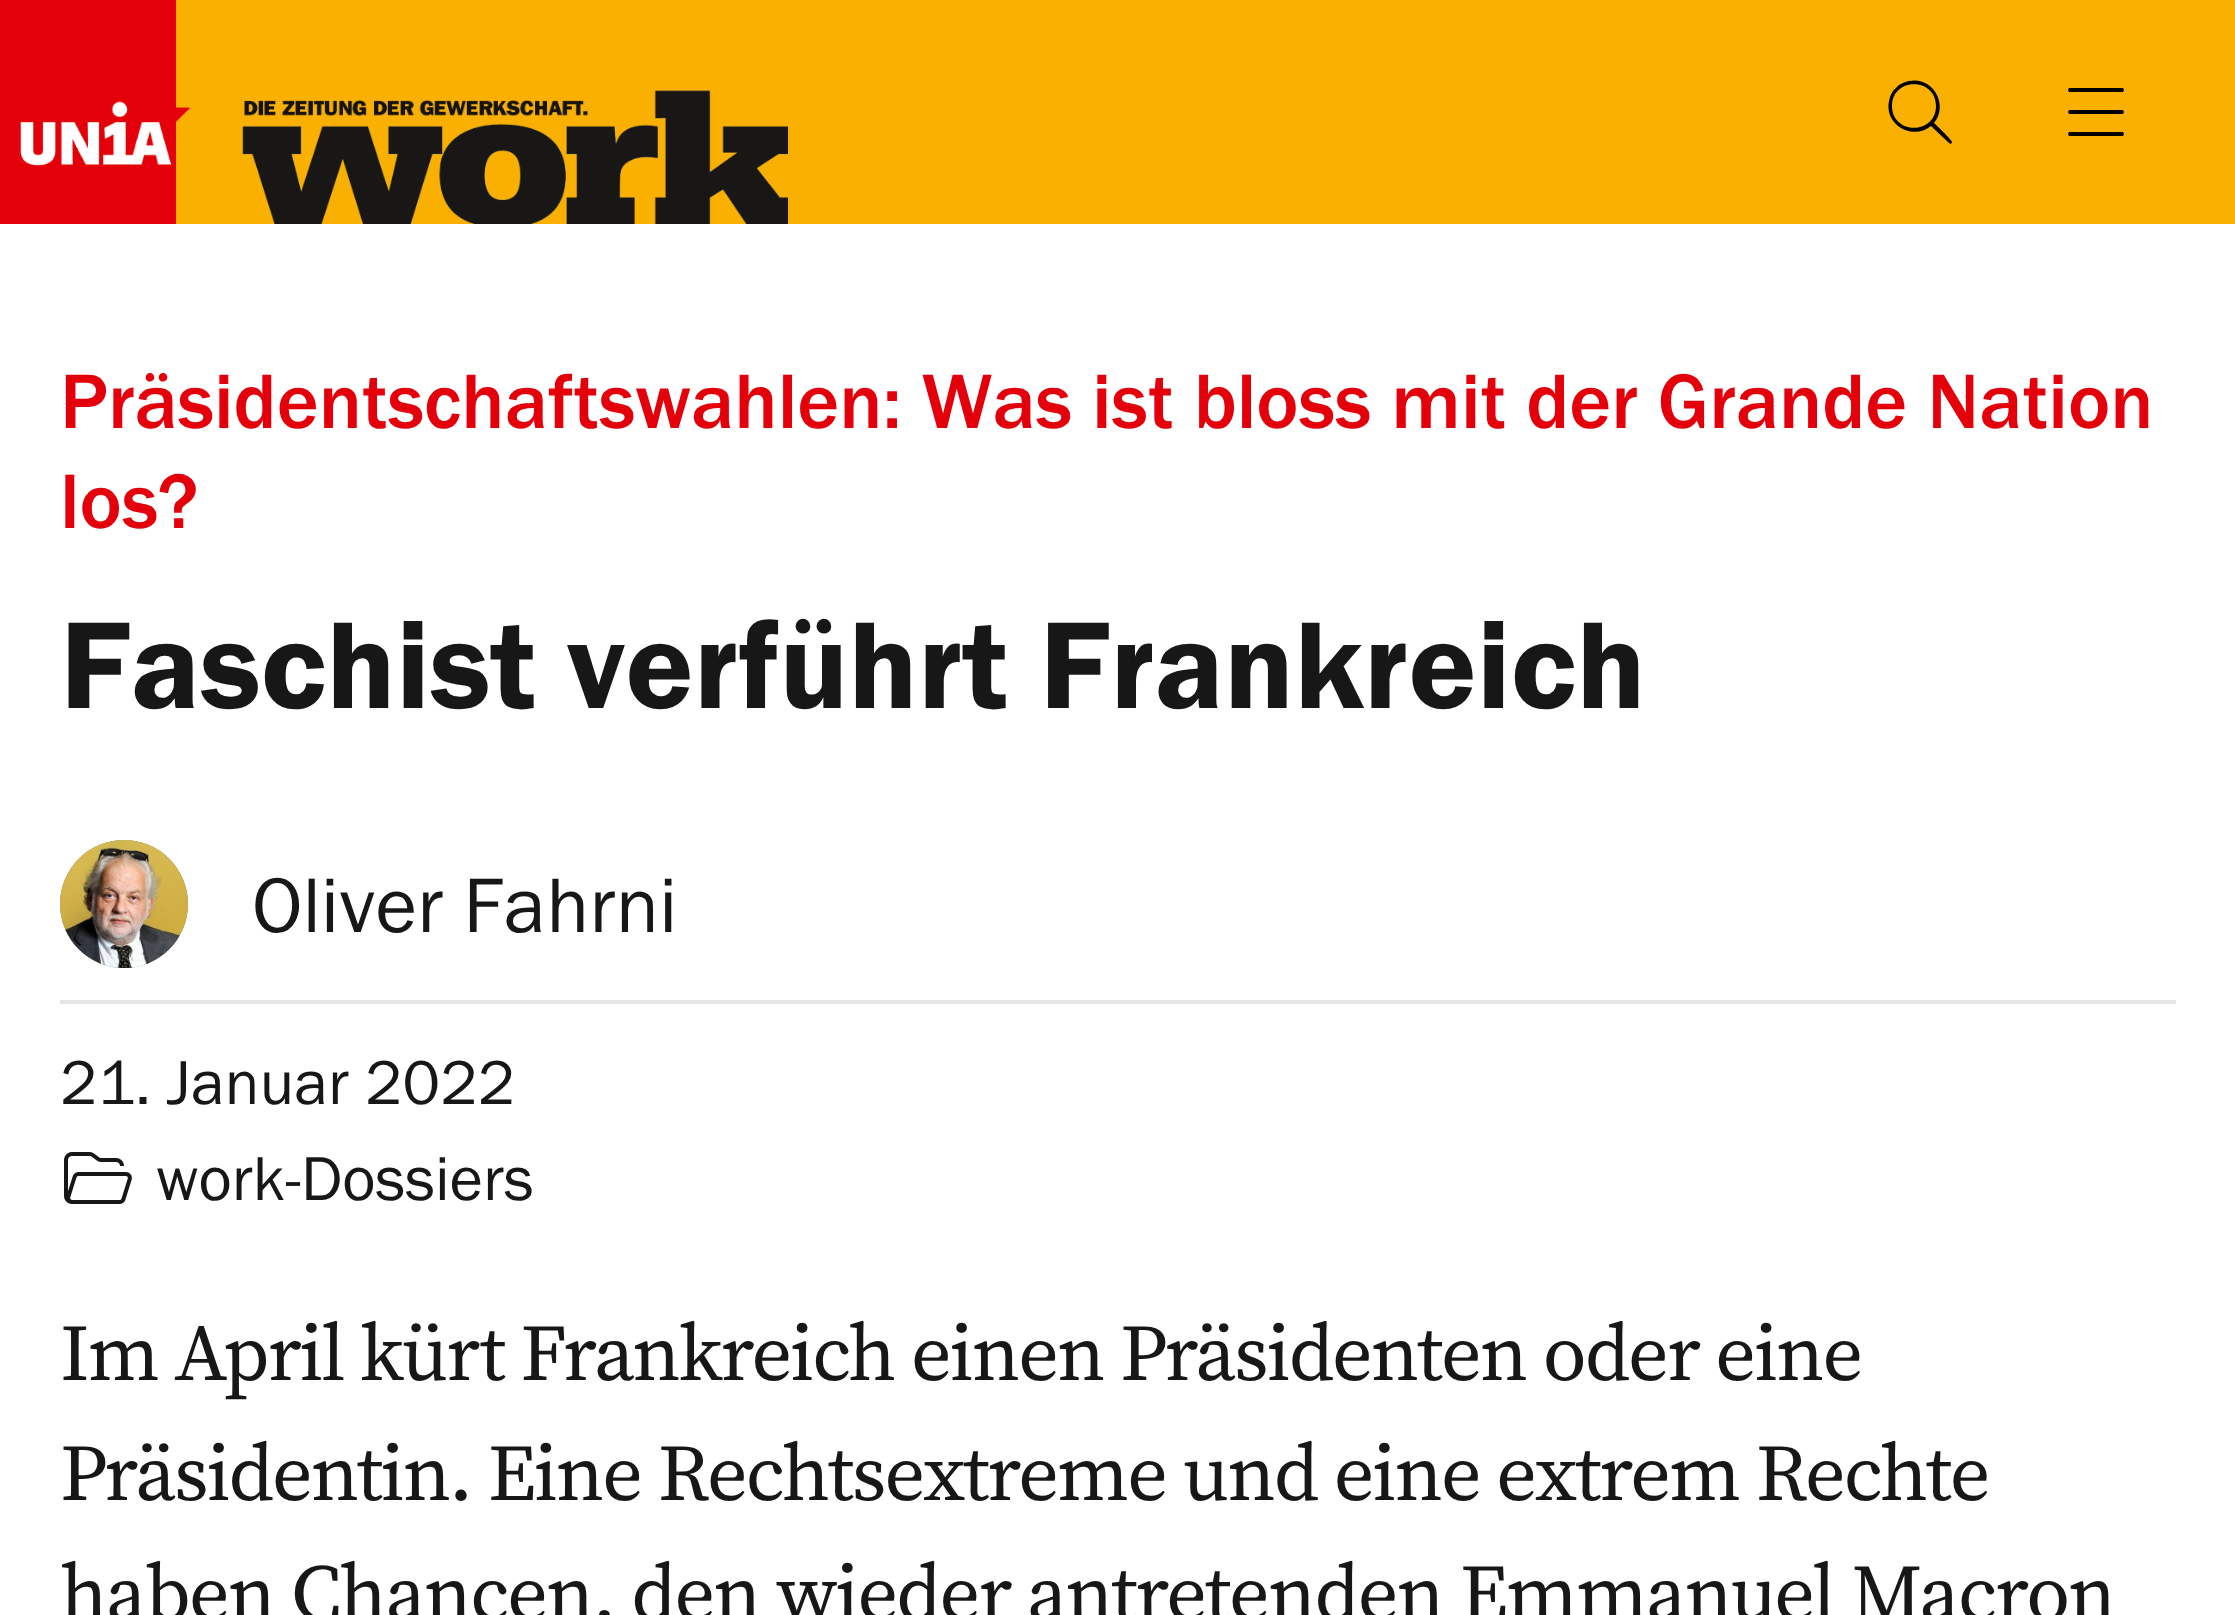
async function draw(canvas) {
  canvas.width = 2235
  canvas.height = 1615
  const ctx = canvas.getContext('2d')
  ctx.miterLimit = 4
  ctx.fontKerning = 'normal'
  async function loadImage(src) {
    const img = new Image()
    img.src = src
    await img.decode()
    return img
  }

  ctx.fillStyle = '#fff'
  ctx.fillRect(0, 0, 2235, 1615)
  ctx.fillStyle = '#f9b000'
  ctx.fillRect(176, 0, 2059, 224)
  ctx.fillStyle = '#e3000b'
  ctx.fillRect(0, 0, 176, 224)
  ctx.drawImage(await loadImage('image0.png'), 20, 101, 152, 65)
  ctx.drawImage(await loadImage('image1.png'), 176, 90, 612, 134)
  ctx.fillStyle = '#000'
  ctx.beginPath()
  ctx.moveTo(1936, 106)
  ctx.bezierCurveTo(1936, 77, 1892, 77, 1892, 106)
  ctx.bezierCurveTo(1892, 135, 1936, 135, 1936, 106)
  ctx.closePath()
  ctx.moveTo(1931, 126)
  ctx.bezierCurveTo(1913, 141, 1884, 125, 1889, 101)
  ctx.bezierCurveTo(1890, 96, 1892, 91, 1896, 88)
  ctx.bezierCurveTo(1899, 84, 1904, 82, 1909, 81)
  ctx.bezierCurveTo(1933, 76, 1949, 105, 1934, 123)
  ctx.bezierCurveTo(1936, 125, 1952, 140, 1952, 142)
  ctx.bezierCurveTo(1952, 144, 1950, 144, 1949, 143)
  ctx.closePath()
  ctx.fill()
  ctx.beginPath()
  ctx.moveTo(2068, 90)
  ctx.lineTo(2069, 88)
  ctx.lineTo(2123, 88)
  ctx.lineTo(2124, 90)
  ctx.lineTo(2123, 92)
  ctx.lineTo(2069, 92)
  ctx.closePath()
  ctx.moveTo(2068, 112)
  ctx.lineTo(2069, 110)
  ctx.lineTo(2123, 110)
  ctx.lineTo(2124, 112)
  ctx.lineTo(2123, 114)
  ctx.lineTo(2069, 114)
  ctx.closePath()
  ctx.moveTo(2124, 134)
  ctx.lineTo(2123, 136)
  ctx.lineTo(2069, 136)
  ctx.lineTo(2068, 134)
  ctx.lineTo(2069, 132)
  ctx.lineTo(2123, 132)
  ctx.closePath()
  ctx.fill()
  ctx.font = '80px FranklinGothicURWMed'
  ctx.fillStyle = '#e3000b'
  ctx.fillText('Präsidentschaftswahlen: Was ist bloss mit der Grande Nation', 60, 428)
  ctx.fillText('los?', 60, 528)
  ctx.font = '128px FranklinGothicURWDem'
  ctx.fillStyle = '#171717'
  ctx.fillText('Faschist verführt Frankreich', 60, 708)
  ctx.fillStyle = '#808080'
  ctx.beginPath()
  ctx.arc(124, 904, 64, 0, 2 * Math.PI)
  ctx.fill()
  ctx.drawImage(await loadImage('image2.png'), 60, 840, 128, 128)
  ctx.font = '80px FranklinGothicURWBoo'
  ctx.fillStyle = '#171717'
  ctx.fillText('Oliver Fahrni', 252, 932)
  ctx.fillStyle = '#e5e5e5'
  ctx.fillRect(60, 1000, 2116, 4)
  ctx.font = '64px FranklinGothicURWBoo'
  ctx.fillStyle = '#171717'
  ctx.fillText('21. Januar 2022', 60, 1104)
  ctx.drawImage(await loadImage('image3.png'), 64, 1152, 68, 52)
  ctx.fillText('work-Dossiers', 156, 1200)
  ctx.letterSpacing = '-2px'
  ctx.font = '80px "Source Serif 4"'
  ctx.fillText('Im April kürt Frankreich einen Präsidenten oder eine', 60, 1380)
  ctx.fillText('Präsidentin. Eine Rechtsextreme und eine extrem Rechte', 60, 1500)
  ctx.fillText('haben Chancen, den wieder antretenden Emmanuel Macron', 60, 1620)
}

draw(document.querySelector('canvas'))
